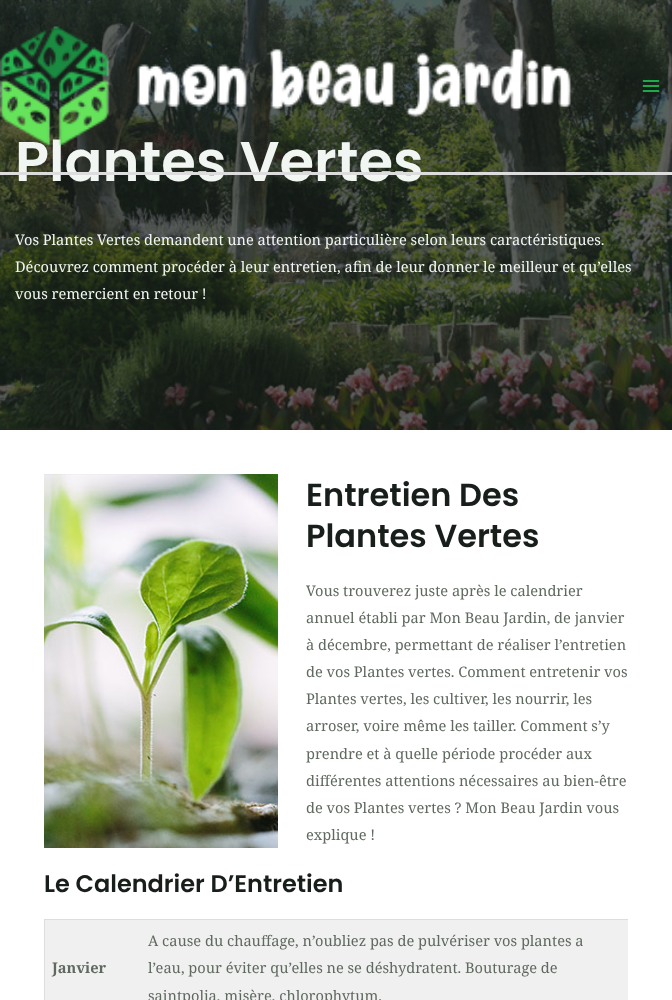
async function draw(canvas) {
  canvas.width = 672
  canvas.height = 1000
  const ctx = canvas.getContext('2d')
  ctx.miterLimit = 4
  ctx.fontKerning = 'normal'
  async function loadImage(src) {
    const img = new Image()
    img.src = src
    await img.decode()
    return img
  }

  ctx.fillStyle = '#fff'
  ctx.fillRect(0, 0, 672, 1000)
  ctx.drawImage(await loadImage('image2.png'), 0, 0, 672, 430)
  ctx.font = '600 56px Poppins'
  ctx.fillStyle = '#f1f6f2'
  ctx.fillText('Plantes Vertes', 15, 181)
  ctx.fillStyle = '#ddd'
  ctx.fillRect(0, 172, 672, 3)
  ctx.drawImage(await loadImage('image0.png'), 0, 26, 572, 121)
  ctx.drawImage(await loadImage('image1.png'), 642, 80, 18, 12)
  ctx.font = '14.6px Noto Serif'
  ctx.fillStyle = '#f1f6f2'
  ctx.fillText('Vos Plantes Vertes demandent une attention particulière selon leurs caractéristiques.', 15, 245)
  ctx.fillText('Découvrez comment procéder à leur entretien, afin de leur donner le meilleur et qu’elles', 15, 272)
  ctx.fillText('vous remercient en retour !', 15, 299)
  ctx.drawImage(await loadImage('image3.png'), 44, 474, 234, 374)
  ctx.font = '600 32px Poppins'
  ctx.fillStyle = '#181e19'
  ctx.fillText('Entretien Des', 306, 506)
  ctx.fillText('Plantes Vertes', 306, 547)
  ctx.font = '14.6px Noto Serif'
  ctx.fillStyle = '#5f695f'
  ctx.fillText('Vous trouverez juste après le calendrier', 306, 596)
  ctx.fillText('annuel établi par Mon Beau Jardin, de janvier', 306, 623)
  ctx.fillText('à décembre, permettant de réaliser l’entretien', 306, 650)
  ctx.fillText('de vos Plantes vertes. Comment entretenir vos', 306, 677)
  ctx.fillText('Plantes vertes, les cultiver, les nourrir, les', 306, 704)
  ctx.fillText('arroser, voire même les tailler. Comment s’y', 306, 731)
  ctx.fillText('prendre et à quelle période procéder aux', 306, 759)
  ctx.fillText('différentes attentions nécessaires au bien-être', 306, 786)
  ctx.fillText('de vos Plantes vertes ? Mon Beau Jardin vous', 306, 813)
  ctx.fillText('explique !', 306, 840)
  ctx.font = '600 24px Poppins'
  ctx.fillStyle = '#181e19'
  ctx.fillText('Le Calendrier D’Entretien', 44, 892)
  ctx.fillStyle = '#ddd'
  ctx.fillRect(44, 919, 584, 1)
  ctx.fillRect(44, 919, 1, 81)
  ctx.fillStyle = '#f0f0f0'
  ctx.fillRect(45, 920, 583, 80)
  ctx.font = 'bold 14.6px Noto Serif'
  ctx.fillStyle = '#5f695f'
  ctx.fillText('Janvier', 52, 973)
  ctx.font = '14.6px Noto Serif'
  ctx.fillText('A cause du chauffage, n’oubliez pas de pulvériser vos plantes a', 148, 946)
  ctx.fillText('l’eau, pour éviter qu’elles ne se déshydratent. Bouturage de', 148, 973)
  ctx.fillText('saintpolia, misère, chlorophytum.', 148, 1001)
}

draw(document.querySelector('canvas'))
